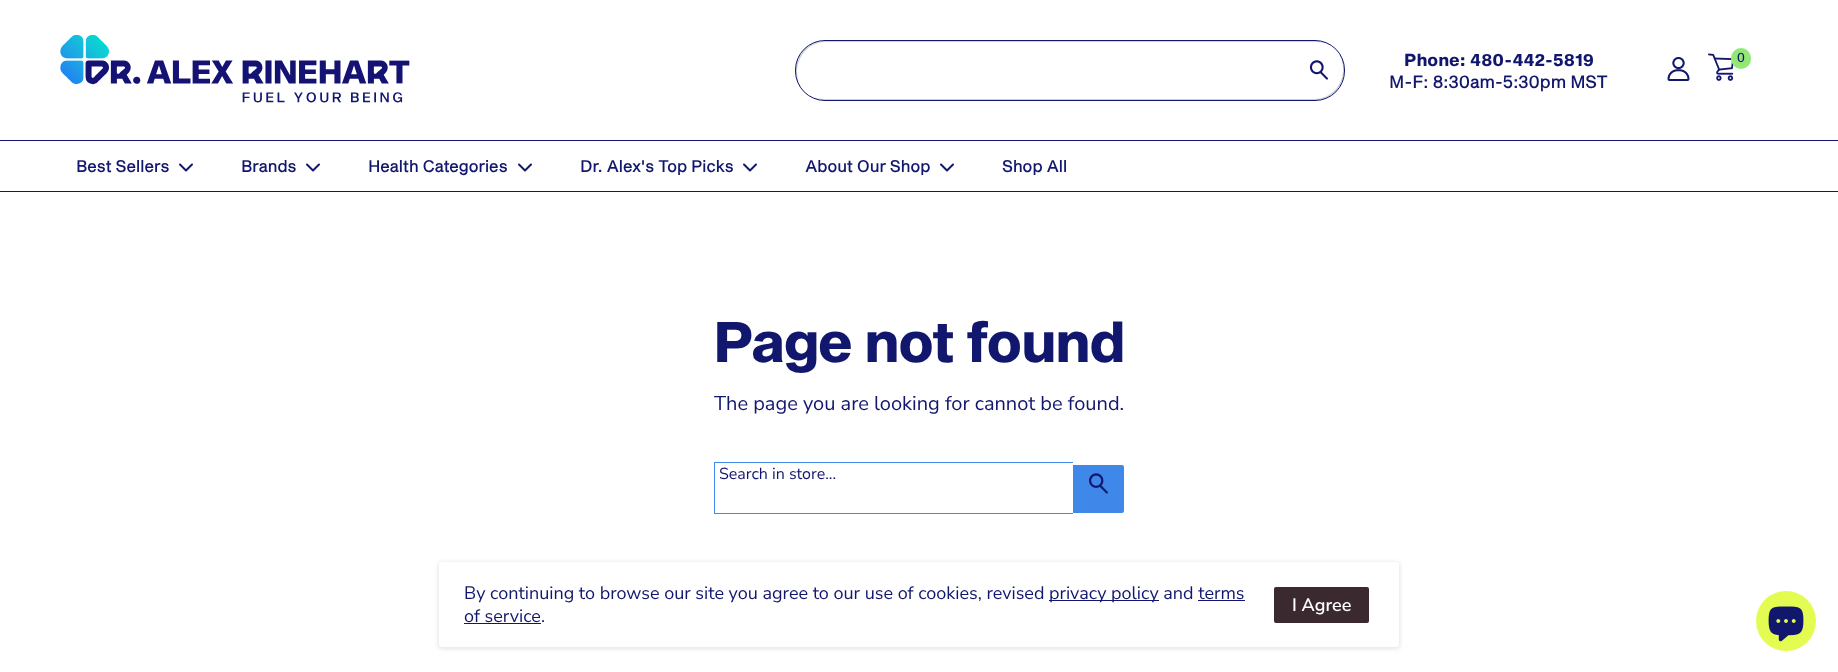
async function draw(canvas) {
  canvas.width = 1838
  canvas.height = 672
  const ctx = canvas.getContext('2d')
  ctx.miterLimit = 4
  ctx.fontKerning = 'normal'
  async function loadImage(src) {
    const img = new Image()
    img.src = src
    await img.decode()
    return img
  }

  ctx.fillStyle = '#fff'
  ctx.fillRect(0, 0, 1838, 672)
  ctx.drawImage(await loadImage('image0.png'), 60, 34, 350, 69)
  ctx.fillStyle = '#ccd2d6'
  ctx.beginPath()
  ctx.moveTo(804, 91)
  ctx.bezierCurveTo(809, 96, 815, 99, 822, 100)
  ctx.lineTo(1315, 100)
  ctx.bezierCurveTo(1342, 100, 1354, 67, 1335, 49)
  ctx.bezierCurveTo(1340, 54, 1343, 61, 1343, 69)
  ctx.lineTo(1343, 70)
  ctx.bezierCurveTo(1343, 86, 1330, 99, 1314, 99)
  ctx.lineTo(824, 99)
  ctx.bezierCurveTo(816, 99, 809, 96, 804, 91)
  ctx.closePath()
  ctx.fill()
  ctx.beginPath()
  ctx.moveTo(826, 42)
  ctx.lineTo(1316, 42)
  ctx.bezierCurveTo(1324, 42, 1331, 45, 1336, 50)
  ctx.bezierCurveTo(1331, 45, 1325, 42, 1318, 41)
  ctx.lineTo(825, 41)
  ctx.bezierCurveTo(798, 41, 786, 74, 805, 92)
  ctx.bezierCurveTo(788, 74, 800, 42, 826, 42)
  ctx.closePath()
  ctx.fill()
  ctx.beginPath()
  ctx.roundRect(795.5, 40.5, 549, 60, 29.5)
  ctx.strokeStyle = '#12176e'
  ctx.stroke()
  ctx.drawImage(await loadImage('image1.png'), 1309, 60, 19, 20)
  ctx.font = 'bold 17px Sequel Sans'
  ctx.fillStyle = '#12176e'
  ctx.fillText('Phone: 480-442-5819', 1404, 66)
  ctx.font = 'bold 17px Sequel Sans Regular'
  ctx.fillText('M-F: 8:30am-5:30pm MST', 1389, 88)
  ctx.drawImage(await loadImage('image2.png'), 1667, 57, 23, 24)
  ctx.drawImage(await loadImage('image3.png'), 1708, 53, 26, 28)
  ctx.fillStyle = '#93e775'
  ctx.beginPath()
  ctx.roundRect(1731, 48, 20, 21, 10)
  ctx.fill()
  ctx.font = '200 13px Nunito Sans'
  ctx.fillStyle = '#12176e'
  ctx.fillText('0', 1737, 62)
  ctx.fillStyle = '#11176e'
  ctx.fillRect(0, 140, 1838, 1)
  ctx.fillRect(0, 191, 1838, 1)
  ctx.font = 'bold 16px Sequel Sans Regular'
  ctx.fillStyle = '#12176e'
  ctx.fillText('Best Sellers', 76, 172)
  ctx.beginPath()
  ctx.moveTo(192, 164.5)
  ctx.lineTo(186, 170.5)
  ctx.lineTo(180, 164.5)
  ctx.strokeStyle = '#13196a'
  ctx.lineWidth = 2
  ctx.lineCap = 'round'
  ctx.lineJoin = 'round'
  ctx.stroke()
  ctx.fillText('Brands', 241, 172)
  ctx.beginPath()
  ctx.moveTo(319, 164.5)
  ctx.lineTo(313, 170.5)
  ctx.lineTo(307, 164.5)
  ctx.stroke()
  ctx.fillText('Health Categories', 368, 172)
  ctx.beginPath()
  ctx.moveTo(531, 164.5)
  ctx.lineTo(525, 170.5)
  ctx.lineTo(519, 164.5)
  ctx.stroke()
  ctx.fillText('Dr. Alex\'s Top Picks', 580, 172)
  ctx.beginPath()
  ctx.moveTo(756, 164.5)
  ctx.lineTo(750, 170.5)
  ctx.lineTo(744, 164.5)
  ctx.stroke()
  ctx.fillText('About Our Shop', 805, 172)
  ctx.beginPath()
  ctx.moveTo(953, 164.5)
  ctx.lineTo(947, 170.5)
  ctx.lineTo(941, 164.5)
  ctx.stroke()
  ctx.fillText('Shop All', 1002, 172)
  ctx.letterSpacing = '-1.75px'
  ctx.font = 'bold 56px Sequel Sans'
  ctx.fillText('Page not found', 713, 362)
  ctx.letterSpacing = '0px'
  ctx.font = '20px Nunito Sans'
  ctx.fillText('The page you are looking for cannot be found.', 714, 410)
  ctx.fillStyle = '#3f88ea'
  ctx.fillRect(714, 462, 359, 1)
  ctx.fillRect(714, 513, 359, 1)
  ctx.fillRect(714, 462, 1, 52)
  ctx.font = '16px Nunito Sans'
  ctx.fillStyle = '#12176e'
  ctx.fillText('Search in store...', 719, 479)
  ctx.fillStyle = '#3f88ea'
  ctx.beginPath()
  ctx.roundRect(1073, 465, 51, 48, [0, 2, 2, 0])
  ctx.fill()
  ctx.drawImage(await loadImage('image4.png'), 1089, 473, 19, 21)
  ctx.fillStyle = '#0000001a'
  ctx.filter = 'blur(2px)'
  ctx.beginPath()
  ctx.roundRect(438, 562, 962, 87, 4)
  ctx.fill()
  ctx.filter = 'none'
  ctx.fillStyle = '#fff'
  ctx.beginPath()
  ctx.roundRect(439, 562, 960, 85, 3)
  ctx.fill()
  ctx.font = '18px Nunito Sans'
  ctx.fillStyle = '#12176e'
  ctx.fillText('By continuing to browse our site you agree to our use of cookies, revised', 464, 599)
  ctx.fillRect(1049, 600, 110, 1)
  ctx.fillText('privacy policy and terms', 1049, 599)
  ctx.fillText('of service.', 464, 622)
  ctx.fillRect(1198, 600, 47, 1)
  ctx.fillRect(464, 623, 77, 1)
  ctx.fillStyle = '#3a2a2f'
  ctx.beginPath()
  ctx.roundRect(1274, 587, 95, 36, 2)
  ctx.fill()
  ctx.font = '200 18px Nunito Sans'
  ctx.fillStyle = '#fff'
  ctx.fillText('I Agree', 1292, 611)
  ctx.fillStyle = '#e4fb52'
  ctx.beginPath()
  ctx.arc(1786, 621, 30, 0, 2 * Math.PI)
  ctx.fill()
  ctx.drawImage(await loadImage('image5.png'), 1768, 606, 36, 36)
}

draw(document.querySelector('canvas'))
